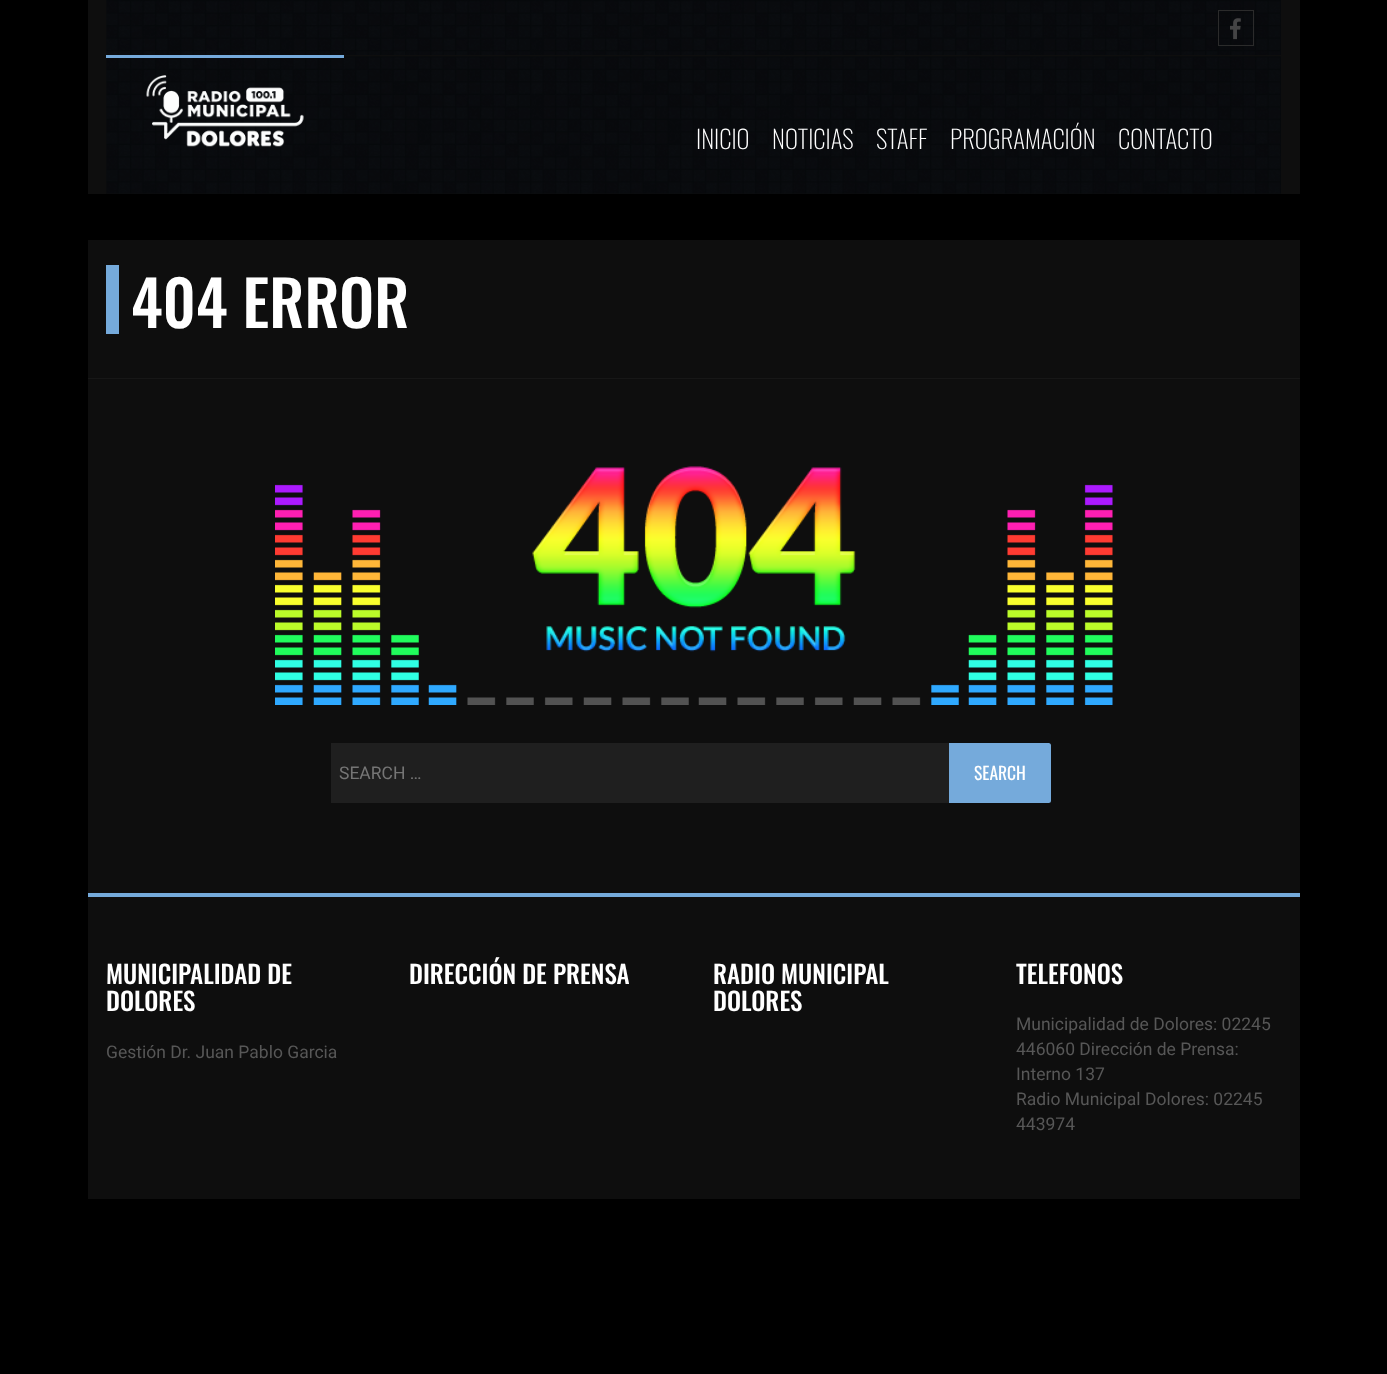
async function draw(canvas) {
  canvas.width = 1387
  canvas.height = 1374
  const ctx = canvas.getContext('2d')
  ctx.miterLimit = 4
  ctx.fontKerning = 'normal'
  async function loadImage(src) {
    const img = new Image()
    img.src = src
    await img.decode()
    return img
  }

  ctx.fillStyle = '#000'
  ctx.fillRect(0, 0, 1387, 1374)
  ctx.fillStyle = '#0e0e0e'
  ctx.fillRect(88, 0, 1212, 194)
  ctx.drawImage(await loadImage('image0.png'), 106, 0, 1175, 55)
  ctx.strokeStyle = '#2b2b2b'
  ctx.strokeRect(1218.5, 10.5, 35, 35)
  ctx.drawImage(await loadImage('image1.png'), 1230, 18, 11, 22)
  ctx.drawImage(await loadImage('image2.png'), 106, 56, 1175, 138)
  ctx.fillStyle = '#75aadb'
  ctx.fillRect(106, 55, 238, 3)
  ctx.drawImage(await loadImage('image3.png'), 146, 75, 158, 72)
  ctx.font = '200 25px Oswald'
  ctx.fillStyle = '#fff'
  ctx.fillText('INICIO', 696, 149)
  ctx.fillText('NOTICIAS', 772, 149)
  ctx.fillText('STAFF', 876, 149)
  ctx.fillText('PROGRAMACIÓN', 950, 149)
  ctx.fillText('CONTACTO', 1118, 149)
  ctx.fillStyle = '#0e0e0e'
  ctx.fillRect(88, 240, 1212, 138)
  ctx.fillStyle = '#171717'
  ctx.fillRect(88, 378, 1212, 1)
  ctx.fillStyle = '#75aadb'
  ctx.fillRect(106, 265, 13, 69)
  ctx.font = '500 62.5px Oswald'
  ctx.fillStyle = '#fff'
  ctx.fillText('404 ERROR', 131, 328)
  ctx.fillStyle = '#0e0e0e'
  ctx.fillRect(88, 379, 1212, 514)
  ctx.drawImage(await loadImage('image4.png'), 275, 466, 838, 239)
  ctx.fillStyle = '#1f1f1f'
  ctx.fillRect(331, 743, 618, 60)
  ctx.font = '17.5px Roboto'
  ctx.fillStyle = '#757575'
  ctx.fillText('SEARCH …', 339, 779)
  ctx.fillStyle = '#75aadb'
  ctx.beginPath()
  ctx.roundRect(949, 743, 102, 60, [0, 2.5, 2.5, 0])
  ctx.fill()
  ctx.font = '17.5px Oswald'
  ctx.fillStyle = '#fff'
  ctx.fillText('SEARCH', 974, 780)
  ctx.fillStyle = '#0e0e0e'
  ctx.fillRect(88, 897, 1212, 302)
  ctx.fillStyle = '#75aadb'
  ctx.fillRect(88, 893, 1212, 4)
  ctx.font = '500 25px Oswald'
  ctx.fillStyle = '#fff'
  ctx.fillText('MUNICIPALIDAD DE', 106, 984)
  ctx.fillText('DOLORES', 106, 1011)
  ctx.font = '17.5px Roboto'
  ctx.fillStyle = '#575757'
  ctx.fillText('Gestión Dr. Juan Pablo Garcia', 106, 1058)
  ctx.font = '500 25px Oswald'
  ctx.fillStyle = '#fff'
  ctx.fillText('DIRECCIÓN DE PRENSA', 409, 984)
  ctx.fillText('RADIO MUNICIPAL', 713, 984)
  ctx.fillText('DOLORES', 713, 1011)
  ctx.fillText('TELEFONOS', 1016, 984)
  ctx.font = '17.5px Roboto'
  ctx.fillStyle = '#575757'
  ctx.fillText('Municipalidad de Dolores: 02245', 1016, 1030)
  ctx.fillText('446060 Dirección de Prensa:', 1016, 1055)
  ctx.fillText('Interno 137', 1016, 1080)
  ctx.fillText('Radio Municipal Dolores: 02245', 1016, 1105)
  ctx.fillText('443974', 1016, 1130)
}

draw(document.querySelector('canvas'))
